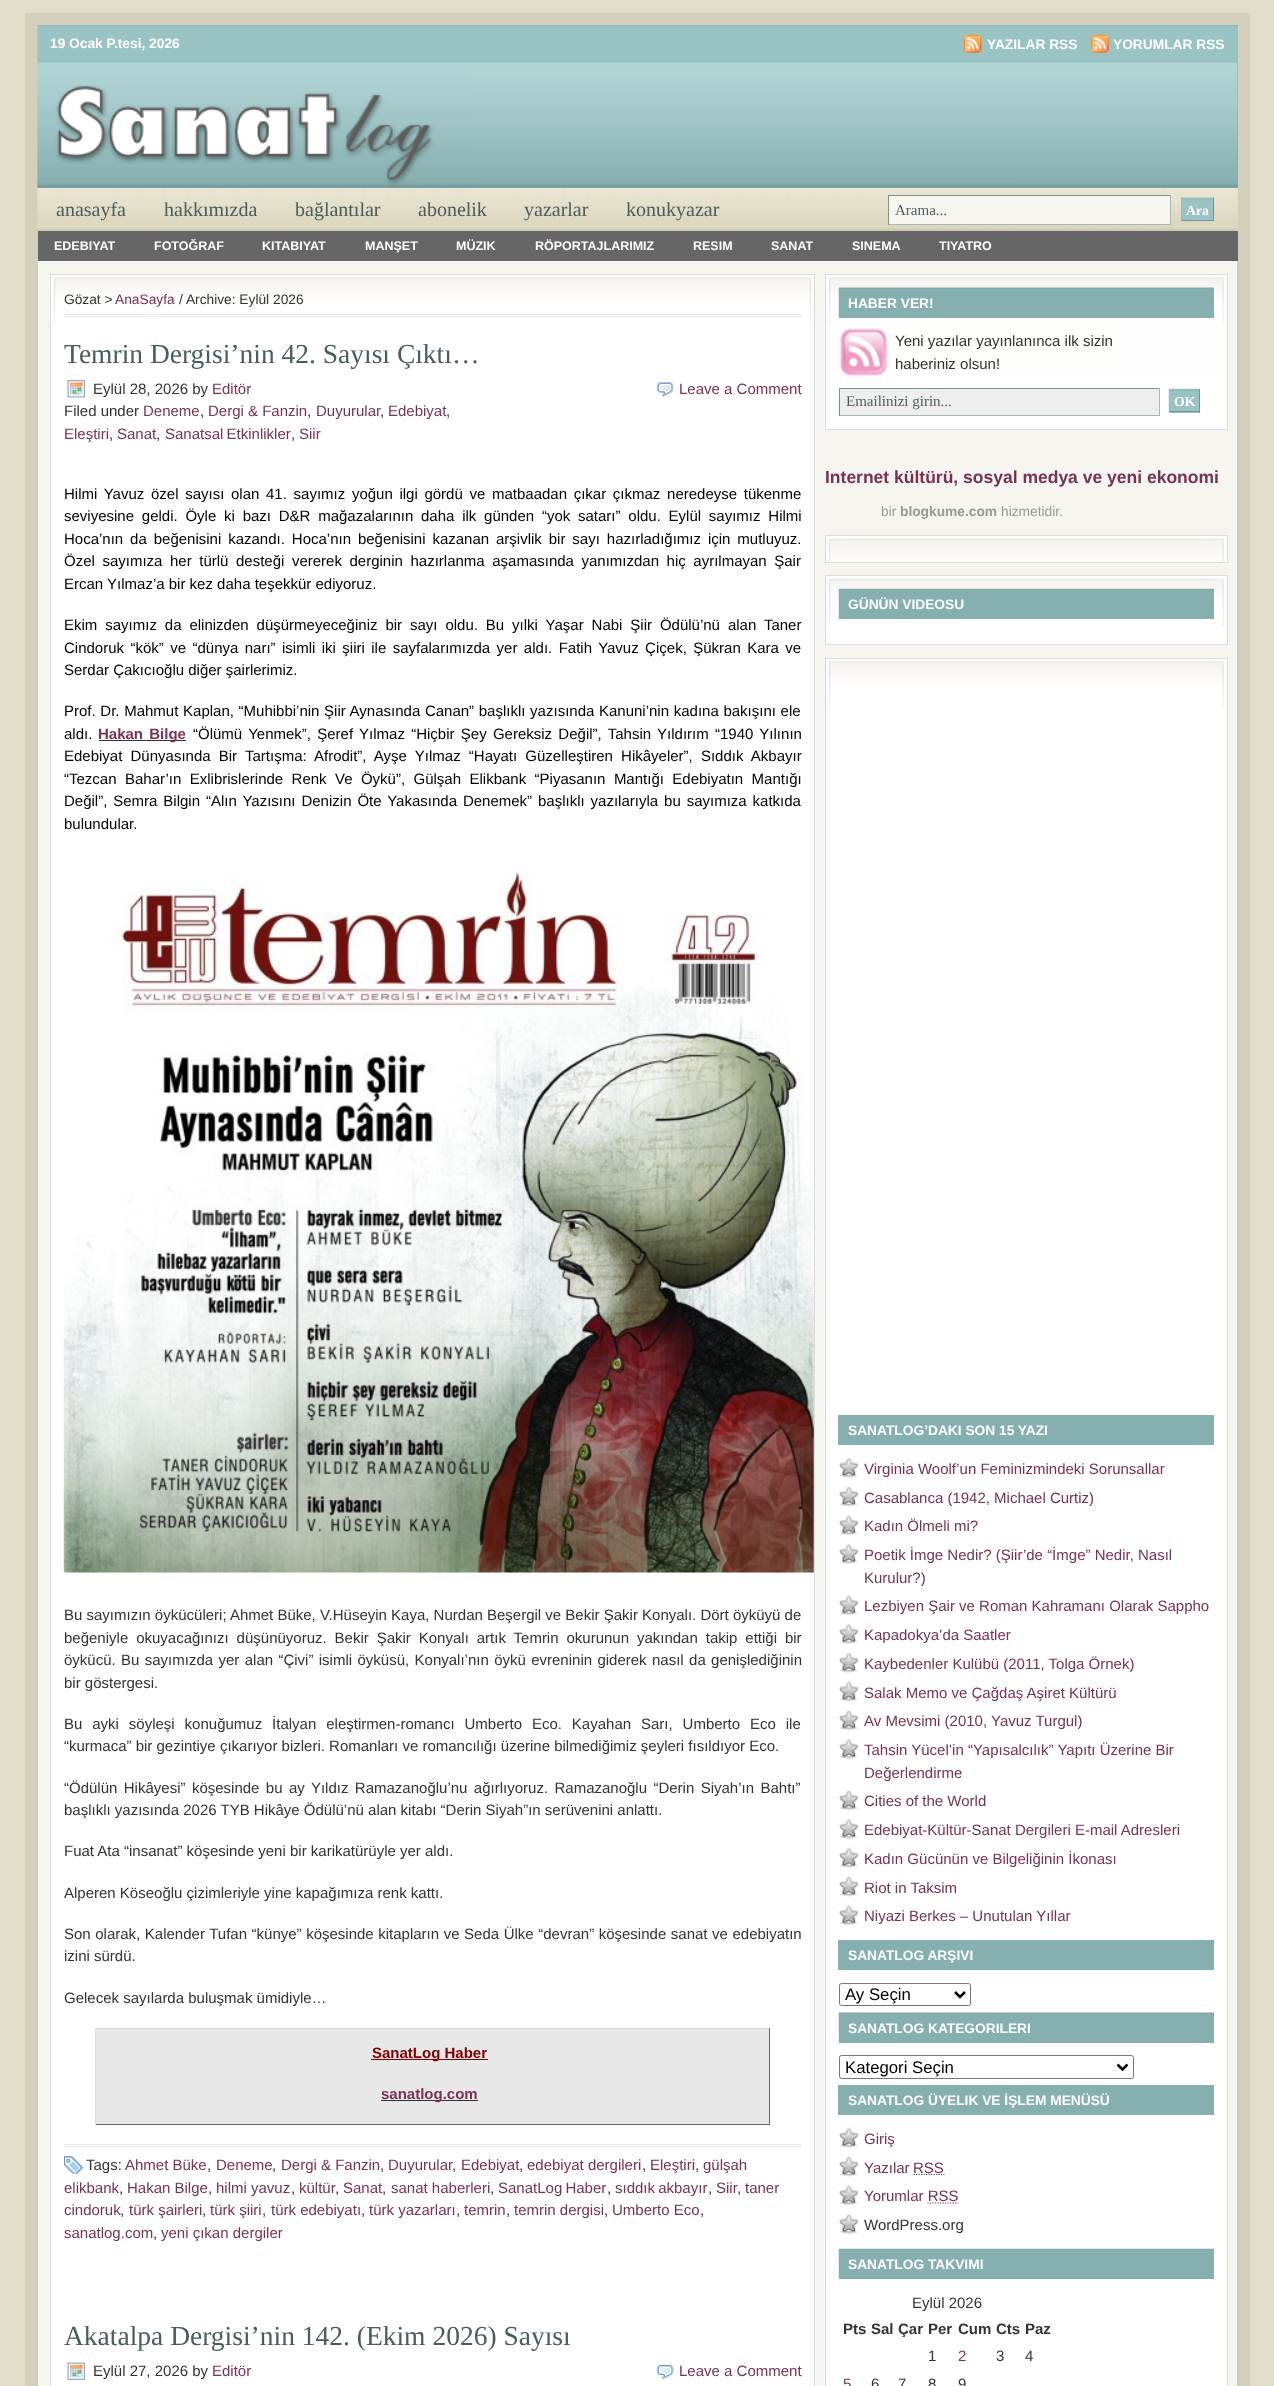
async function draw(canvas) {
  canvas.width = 1274
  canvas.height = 2386
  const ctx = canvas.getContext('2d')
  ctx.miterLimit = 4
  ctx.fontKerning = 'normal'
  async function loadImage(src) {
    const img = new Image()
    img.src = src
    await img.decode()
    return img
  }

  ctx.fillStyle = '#e2ddcb'
  ctx.fillRect(0, 0, 1274, 2386)
  ctx.fillStyle = '#f7f5ef'
  ctx.fillRect(38, 261, 1199, 2125)
  ctx.strokeStyle = '#d4cfbb'
  ctx.lineWidth = 13
  ctx.strokeRect(31.5, 19.5, 1212, 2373)
  ctx.fillStyle = '#93bbbc'
  ctx.fillRect(38, 25, 1200, 38)
  ctx.drawImage(await loadImage('image0.png'), 37, 25, 1201, 38)
  ctx.font = 'bold 13.75px Liberation Sans'
  ctx.fillStyle = '#fff'
  ctx.fillText('19 Ocak P.tesi, 2026', 50, 48)
  ctx.drawImage(await loadImage('image1.png'), 963, 34, 19, 19)
  ctx.fillText('YAZILAR RSS', 987, 49)
  ctx.drawImage(await loadImage('image2.png'), 1091, 34, 18, 19)
  ctx.fillText('YORUMLAR RSS', 1113, 49)
  ctx.fillStyle = '#e1dcca'
  ctx.fillRect(1237, 188, 1, 43)
  ctx.drawImage(await loadImage('image5.png'), 37, 187, 1201, 45)
  ctx.fillStyle = '#85acac'
  ctx.fillRect(38, 63, 1200, 125)
  ctx.drawImage(await loadImage('image3.png'), 37, 62, 1201, 126)
  ctx.drawImage(await loadImage('image4.png'), 37, 62, 438, 126)
  ctx.font = '20px Liberation Serif'
  ctx.fillStyle = '#495d5c'
  ctx.fillText('anasayfa', 56, 216)
  ctx.fillText('hakkımızda', 164, 216)
  ctx.fillText('bağlantılar', 295, 216)
  ctx.fillText('abonelik', 418, 216)
  ctx.fillText('yazarlar', 524, 216)
  ctx.fillText('konukyazar', 626, 216)
  ctx.fillStyle = '#f7f5ef'
  ctx.fillRect(889, 196, 281, 28)
  ctx.fillStyle = '#759697'
  ctx.fillRect(888, 195, 283, 1)
  ctx.fillStyle = '#a3bab9'
  ctx.fillRect(1170, 195, 1, 30)
  ctx.fillRect(888, 224, 283, 1)
  ctx.fillStyle = '#759697'
  ctx.fillRect(888, 195, 1, 30)
  ctx.font = '15px Liberation Serif'
  ctx.fillStyle = '#495d5c'
  ctx.fillText('Arama...', 895, 215)
  ctx.drawImage(await loadImage('image6.png'), 1181, 197, 33, 25)
  ctx.fillStyle = '#a3bab9'
  ctx.fillRect(1181, 198, 33, 1)
  ctx.fillStyle = '#759697'
  ctx.fillRect(1213, 198, 1, 23)
  ctx.fillRect(1181, 220, 33, 1)
  ctx.fillStyle = '#a3bab9'
  ctx.fillRect(1181, 198, 1, 23)
  ctx.font = 'bold 13.75px Liberation Serif'
  ctx.fillStyle = '#fff'
  ctx.fillText('Ara', 1186, 215)
  ctx.fillStyle = '#666'
  ctx.fillRect(38, 231, 1200, 30)
  ctx.font = 'bold 12.5px Liberation Sans'
  ctx.fillStyle = '#fff'
  ctx.fillText('EDEBIYAT', 54, 250)
  ctx.fillText('FOTOĞRAF', 154, 250)
  ctx.fillText('KITABIYAT', 262, 250)
  ctx.fillText('MANŞET', 365, 250)
  ctx.fillText('MÜZIK', 456, 250)
  ctx.fillText('RÖPORTAJLARIMIZ', 535, 250)
  ctx.fillText('RESIM', 693, 250)
  ctx.fillText('SANAT', 771, 250)
  ctx.fillText('SINEMA', 852, 250)
  ctx.fillText('TIYATRO', 939, 250)
  ctx.fillRect(51, 275, 763, 2111)
  ctx.drawImage(await loadImage('image7.png'), 53, 277, 759, 48)
  ctx.strokeStyle = '#ddd'
  ctx.lineWidth = 1
  ctx.strokeRect(50.5, 274.5, 764, 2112)
  ctx.fillStyle = '#eaeaea'
  ctx.fillRect(64, 314, 737, 1)
  ctx.fillRect(64, 316, 737, 1)
  ctx.font = '13.75px Liberation Sans'
  ctx.fillStyle = '#333'
  ctx.fillText('Gözat >', 64, 304)
  ctx.fillStyle = '#7a3254'
  ctx.fillText('AnaSayfa', 115, 304)
  ctx.fillStyle = '#333'
  ctx.fillText('/ Archive: Eylül 2026', 179, 304)
  ctx.font = '27.5px Liberation Serif'
  ctx.fillStyle = '#495d5c'
  ctx.fillText('Temrin Dergisi’nin 42. Sayısı Çıktı…', 64, 363)
  ctx.drawImage(await loadImage('image8.png'), 67, 380, 18, 18)
  ctx.font = '15px Liberation Sans'
  ctx.fillStyle = '#333'
  ctx.fillText('Eylül 28, 2026 by', 93, 394)
  ctx.fillStyle = '#7a3254'
  ctx.fillText('Editör', 212, 394)
  ctx.fillStyle = '#333'
  ctx.fillText('Filed under', 64, 416)
  ctx.fillStyle = '#7a3254'
  ctx.fillText('Deneme', 143, 416)
  ctx.fillStyle = '#333'
  ctx.fillText(',', 200, 416)
  ctx.fillStyle = '#7a3254'
  ctx.fillText('Dergi & Fanzin', 208, 416)
  ctx.fillStyle = '#333'
  ctx.fillText(',', 307, 416)
  ctx.fillStyle = '#7a3254'
  ctx.fillText('Duyurular', 316, 416)
  ctx.fillStyle = '#333'
  ctx.fillText(',', 380, 416)
  ctx.fillStyle = '#7a3254'
  ctx.fillText('Edebiyat', 388, 416)
  ctx.fillStyle = '#333'
  ctx.fillText(',', 446, 416)
  ctx.fillStyle = '#7a3254'
  ctx.fillText('Eleştiri', 64, 439)
  ctx.fillStyle = '#333'
  ctx.fillText(',', 109, 439)
  ctx.fillStyle = '#7a3254'
  ctx.fillText('Sanat', 117, 439)
  ctx.fillStyle = '#333'
  ctx.fillText(',', 156, 439)
  ctx.wordSpacing = '-1px'
  ctx.fillStyle = '#7a3254'
  ctx.fillText('Sanatsal Etkinlikler', 165, 439)
  ctx.wordSpacing = '0px'
  ctx.fillStyle = '#333'
  ctx.fillText(',', 291, 439)
  ctx.fillStyle = '#7a3254'
  ctx.fillText('Siir', 299, 439)
  ctx.drawImage(await loadImage('image9.png'), 656, 382, 18, 15)
  ctx.fillText('Leave a Comment', 679, 394)
  ctx.wordSpacing = '2.5px'
  ctx.fillStyle = '#000'
  ctx.fillText('Hilmi Yavuz özel sayısı olan 41. sayımız yoğun ilgi gördü ve matbaadan çıkar çıkmaz neredeyse tükenme', 64, 499)
  ctx.wordSpacing = '3.6px'
  ctx.fillText('seviyesine geldi. Öyle ki bazı D&R mağazalarının daha ilk günden “yok satarı” oldu. Eylül sayımız Hilmi', 64, 521)
  ctx.wordSpacing = '2.75px'
  ctx.fillText('Hoca’nın da beğenisini kazandı. Hoca’nın beğenisini kazanan arşivlik bir sayı hazırladığımız için mutluyuz.', 64, 544)
  ctx.wordSpacing = '3.4px'
  ctx.fillText('Özel sayımıza her türlü desteği vererek derginin hazırlanma aşamasında yanımızdan hiç ayrılmayan Şair', 64, 566)
  ctx.wordSpacing = '0px'
  ctx.fillText('Ercan Yılmaz’a bir kez daha teşekkür ediyoruz.', 64, 589)
  ctx.wordSpacing = '3.75px'
  ctx.fillText('Ekim sayımız da elinizden düşürmeyeceğiniz bir sayı oldu. Bu yılki Yaşar Nabi Şiir Ödülü’nü alan Taner', 64, 630)
  ctx.wordSpacing = '2.25px'
  ctx.fillText('Cindoruk “kök” ve “dünya narı” isimli iki şiiri ile sayfalarımızda yer aldı. Fatih Yavuz Çiçek, Şükran Kara ve', 64, 653)
  ctx.wordSpacing = '0px'
  ctx.fillText('Serdar Çakıcıoğlu diğer şairlerimiz.', 64, 675)
  ctx.wordSpacing = '0.5px'
  ctx.fillText('Prof. Dr. Mahmut Kaplan, “Muhibbi’nin Şiir Aynasında Canan” başlıklı yazısında Kanuni’nin kadına bakışını ele', 64, 716)
  ctx.wordSpacing = '0px'
  ctx.fillText('aldı.', 64, 739)
  ctx.fillStyle = '#333'
  ctx.fillRect(99, 740, 87, 1)
  ctx.wordSpacing = '2.1px'
  ctx.font = 'bold 15px Liberation Sans'
  ctx.fillStyle = '#7a3254'
  ctx.fillText('Hakan Bilge', 98, 739)
  ctx.font = '15px Liberation Sans'
  ctx.fillStyle = '#000'
  ctx.fillText('“Ölümü Yenmek”, Şeref Yılmaz “Hiçbir Şey Gereksiz Değil”, Tahsin Yıldırım “1940 Yılının', 193, 739)
  ctx.wordSpacing = '4px'
  ctx.fillText('Edebiyat Dünyasında Bir Tartışma: Afrodit”, Ayşe Yılmaz “Hayatı Güzelleştiren Hikâyeler”, Sıddık Akbayır', 64, 761)
  ctx.wordSpacing = '4.25px'
  ctx.fillText('“Tezcan Bahar’ın Exlibrislerinde Renk Ve Öykü”, Gülşah Elikbank “Piyasanın Mantığı Edebiyatın Mantığı', 64, 784)
  ctx.wordSpacing = '1.75px'
  ctx.fillText('Değil”, Semra Bilgin “Alın Yazısını Denizin Öte Yakasında Denemek” başlıklı yazılarıyla bu sayımıza katkıda', 64, 806)
  ctx.wordSpacing = '0px'
  ctx.fillText('bulundular.', 64, 829)
  ctx.drawImage(await loadImage('image10.png'), 63, 864, 751, 709)
  ctx.fillStyle = '#333'
  ctx.fillText('Bu sayımızın öykücüleri; Ahmet Büke, V.Hüseyin Kaya, Nurdan Beşergil ve Bekir Şakir Konyalı. Dört öyküyü de', 64, 1620)
  ctx.wordSpacing = '3.75px'
  ctx.fillText('beğeniyle okuyacağınızı düşünüyoruz. Bekir Şakir Konyalı artık Temrin okurunun yakından takip ettiği bir', 64, 1643)
  ctx.wordSpacing = '1.2px'
  ctx.fillText('öykücü. Bu sayımızda yer alan “Çivi” isimli öyküsü, Konyalı’nın öykü evreninin giderek nasıl da genişlediğinin', 64, 1665)
  ctx.wordSpacing = '0px'
  ctx.fillText('bir göstergesi.', 64, 1688)
  ctx.wordSpacing = '5.75px'
  ctx.fillText('Bu ayki söyleşi konuğumuz İtalyan eleştirmen-romancı Umberto Eco. Kayahan Sarı, Umberto Eco ile', 64, 1729)
  ctx.wordSpacing = '0px'
  ctx.fillText('“kurmaca” bir gezintiye çıkarıyor bizleri. Romanları ve romancılığı üzerine bilmediğimiz şeyleri fısıldıyor Eco.', 64, 1751)
  ctx.wordSpacing = '2.25px'
  ctx.fillText('“Ödülün Hikâyesi” köşesinde bu ay Yıldız Ramazanoğlu’nu ağırlıyoruz. Ramazanoğlu “Derin Siyah’ın Bahtı”', 64, 1793)
  ctx.wordSpacing = '0px'
  ctx.fillText('başlıklı yazısında 2026 TYB Hikâye Ödülü’nü alan kitabı “Derin Siyah”ın serüvenini anlattı.', 64, 1815)
  ctx.fillText('Fuat Ata “insanat” köşesinde yeni bir karikatürüyle yer aldı.', 64, 1856)
  ctx.fillText('Alperen Köseoğlu çizimleriyle yine kapağımıza renk kattı.', 64, 1898)
  ctx.wordSpacing = '0.4px'
  ctx.fillText('Son olarak, Kalender Tufan “künye” köşesinde kitapların ve Seda Ülke “devran” köşesinde sanat ve edebiyatın', 64, 1939)
  ctx.wordSpacing = '0px'
  ctx.fillText('izini sürdü.', 64, 1961)
  ctx.fillText('Gelecek sayılarda buluşmak ümidiyle…', 64, 2003)
  ctx.fillStyle = '#e8e8e8'
  ctx.fillRect(96, 2029, 673, 95)
  ctx.fillStyle = '#ddd'
  ctx.fillRect(95, 2028, 675, 1)
  ctx.fillStyle = '#666'
  ctx.fillRect(769, 2028, 1, 97)
  ctx.fillRect(95, 2124, 675, 1)
  ctx.fillStyle = '#ddd'
  ctx.fillRect(95, 2028, 1, 97)
  ctx.fillStyle = '#800000'
  ctx.fillRect(371, 2059, 117, 1)
  ctx.font = 'bold 15px Liberation Sans'
  ctx.fillText('SanatLog Haber', 372, 2058)
  ctx.fillStyle = '#333'
  ctx.fillRect(381, 2100, 97, 1)
  ctx.fillStyle = '#7a3254'
  ctx.fillText('sanatlog.com', 381, 2099)
  ctx.fillStyle = '#eaeaea'
  ctx.fillRect(64, 2144, 737, 1)
  ctx.fillRect(64, 2146, 737, 1)
  ctx.drawImage(await loadImage('image11.png'), 64, 2156, 20, 18)
  ctx.font = '15px Liberation Sans'
  ctx.fillStyle = '#333'
  ctx.fillText('Tags:', 86, 2170)
  ctx.fillStyle = '#7a3254'
  ctx.fillText('Ahmet Büke', 125, 2170)
  ctx.fillStyle = '#333'
  ctx.fillText(',', 207, 2170)
  ctx.fillStyle = '#7a3254'
  ctx.fillText('Deneme', 216, 2170)
  ctx.fillStyle = '#333'
  ctx.fillText(',', 272, 2170)
  ctx.fillStyle = '#7a3254'
  ctx.fillText('Dergi & Fanzin', 281, 2170)
  ctx.fillStyle = '#333'
  ctx.fillText(',', 380, 2170)
  ctx.fillStyle = '#7a3254'
  ctx.fillText('Duyurular', 388, 2170)
  ctx.fillStyle = '#333'
  ctx.fillText(',', 452, 2170)
  ctx.fillStyle = '#7a3254'
  ctx.fillText('Edebiyat', 461, 2170)
  ctx.fillStyle = '#333'
  ctx.fillText(',', 519, 2170)
  ctx.fillStyle = '#7a3254'
  ctx.fillText('edebiyat dergileri', 527, 2170)
  ctx.fillStyle = '#333'
  ctx.fillText(',', 642, 2170)
  ctx.fillStyle = '#7a3254'
  ctx.fillText('Eleştiri', 650, 2170)
  ctx.fillStyle = '#333'
  ctx.fillText(',', 695, 2170)
  ctx.fillStyle = '#7a3254'
  ctx.fillText('gülşah', 703, 2170)
  ctx.fillText('elikbank', 64, 2193)
  ctx.fillStyle = '#333'
  ctx.fillText(',', 119, 2193)
  ctx.fillStyle = '#7a3254'
  ctx.fillText('Hakan Bilge', 127, 2193)
  ctx.fillStyle = '#333'
  ctx.fillText(',', 208, 2193)
  ctx.fillStyle = '#7a3254'
  ctx.fillText('hilmi yavuz', 216, 2193)
  ctx.fillStyle = '#333'
  ctx.fillText(',', 291, 2193)
  ctx.fillStyle = '#7a3254'
  ctx.fillText('kültür', 299, 2193)
  ctx.fillStyle = '#333'
  ctx.fillText(',', 335, 2193)
  ctx.fillStyle = '#7a3254'
  ctx.fillText('Sanat', 343, 2193)
  ctx.fillStyle = '#333'
  ctx.fillText(',', 382, 2193)
  ctx.fillStyle = '#7a3254'
  ctx.fillText('sanat haberleri', 391, 2193)
  ctx.fillStyle = '#333'
  ctx.fillText(',', 490, 2193)
  ctx.wordSpacing = '-1px'
  ctx.fillStyle = '#7a3254'
  ctx.fillText('SanatLog Haber', 498, 2193)
  ctx.wordSpacing = '0px'
  ctx.fillStyle = '#333'
  ctx.fillText(',', 607, 2193)
  ctx.wordSpacing = '-1px'
  ctx.fillStyle = '#7a3254'
  ctx.fillText('sıddık akbayır', 615, 2193)
  ctx.wordSpacing = '0px'
  ctx.fillStyle = '#333'
  ctx.fillText(',', 708, 2193)
  ctx.fillStyle = '#7a3254'
  ctx.fillText('Siir', 716, 2193)
  ctx.fillStyle = '#333'
  ctx.fillText(',', 737, 2193)
  ctx.fillStyle = '#7a3254'
  ctx.fillText('taner', 745, 2193)
  ctx.fillText('cindoruk', 64, 2215)
  ctx.fillStyle = '#333'
  ctx.fillText(',', 120, 2215)
  ctx.fillStyle = '#7a3254'
  ctx.fillText('türk şairleri', 129, 2215)
  ctx.fillStyle = '#333'
  ctx.fillText(',', 202, 2215)
  ctx.fillStyle = '#7a3254'
  ctx.fillText('türk şiiri', 210, 2215)
  ctx.fillStyle = '#333'
  ctx.fillText(',', 262, 2215)
  ctx.fillStyle = '#7a3254'
  ctx.fillText('türk edebiyatı', 271, 2215)
  ctx.fillStyle = '#333'
  ctx.fillText(',', 361, 2215)
  ctx.fillStyle = '#7a3254'
  ctx.fillText('türk yazarları', 369, 2215)
  ctx.fillStyle = '#333'
  ctx.fillText(',', 456, 2215)
  ctx.fillStyle = '#7a3254'
  ctx.fillText('temrin', 464, 2215)
  ctx.fillStyle = '#333'
  ctx.fillText(',', 506, 2215)
  ctx.fillStyle = '#7a3254'
  ctx.fillText('temrin dergisi', 514, 2215)
  ctx.fillStyle = '#333'
  ctx.fillText(',', 604, 2215)
  ctx.fillStyle = '#7a3254'
  ctx.fillText('Umberto Eco', 612, 2215)
  ctx.fillStyle = '#333'
  ctx.fillText(',', 700, 2215)
  ctx.fillStyle = '#7a3254'
  ctx.fillText('sanatlog.com', 64, 2238)
  ctx.fillStyle = '#333'
  ctx.fillText(',', 153, 2238)
  ctx.fillStyle = '#7a3254'
  ctx.fillText('yeni çıkan dergiler', 161, 2238)
  ctx.font = '27.5px Liberation Serif'
  ctx.fillStyle = '#495d5c'
  ctx.fillText('Akatalpa Dergisi’nin 142. (Ekim 2026) Sayısı', 64, 2345)
  ctx.drawImage(await loadImage('image12.png'), 67, 2362, 18, 18)
  ctx.font = '15px Liberation Sans'
  ctx.fillStyle = '#333'
  ctx.fillText('Eylül 27, 2026 by', 93, 2376)
  ctx.fillStyle = '#7a3254'
  ctx.fillText('Editör', 212, 2376)
  ctx.drawImage(await loadImage('image13.png'), 656, 2364, 18, 15)
  ctx.fillText('Leave a Comment', 679, 2376)
  ctx.fillStyle = '#fff'
  ctx.fillRect(826, 275, 401, 154)
  ctx.drawImage(await loadImage('image14.png'), 828, 277, 396, 100)
  ctx.strokeRect(825.5, 274.5, 402, 155)
  ctx.fillStyle = '#86afb0'
  ctx.fillRect(839, 288, 375, 30)
  ctx.drawImage(await loadImage('image15.png'), 838, 287, 376, 31)
  ctx.font = 'bold 13.75px Liberation Sans'
  ctx.fillStyle = '#fff'
  ctx.fillText('HABER VER!', 848, 308)
  ctx.font = '15px Liberation Sans'
  ctx.fillStyle = '#333'
  ctx.fillText('Yeni yazılar yayınlanınca ilk sizin', 895, 346)
  ctx.fillText('haberiniz olsun!', 895, 369)
  ctx.fillStyle = '#eee'
  ctx.fillRect(840, 389, 319, 26)
  ctx.fillStyle = '#759697'
  ctx.fillRect(839, 388, 321, 1)
  ctx.fillStyle = '#a3bab9'
  ctx.fillRect(1159, 388, 1, 28)
  ctx.fillRect(839, 415, 321, 1)
  ctx.fillStyle = '#759697'
  ctx.fillRect(839, 388, 1, 28)
  ctx.font = '15px Liberation Serif'
  ctx.fillStyle = '#495d5c'
  ctx.fillText('Emailinizi girin...', 846, 406)
  ctx.fillStyle = '#93bbbc'
  ctx.fillRect(1170, 412, 29, 1)
  ctx.drawImage(await loadImage('image16.png'), 1168, 388, 32, 25)
  ctx.fillStyle = '#a3bab9'
  ctx.fillRect(1169, 389, 31, 1)
  ctx.fillStyle = '#759697'
  ctx.fillRect(1199, 389, 1, 24)
  ctx.fillRect(1169, 411, 31, 1)
  ctx.fillStyle = '#a3bab9'
  ctx.fillRect(1169, 389, 1, 24)
  ctx.font = 'bold 13.75px Liberation Serif'
  ctx.fillStyle = '#fff'
  ctx.fillText('OK', 1174, 406)
  ctx.font = 'bold 17.5px Liberation Sans'
  ctx.fillStyle = '#7a3254'
  ctx.fillText('Internet kültürü, sosyal medya ve yeni ekonomi', 825, 483)
  ctx.font = '13.75px Liberation Sans'
  ctx.fillStyle = '#999'
  ctx.fillText('bir', 881, 516)
  ctx.font = 'bold 13.75px Liberation Sans'
  ctx.fillText('blogkume.com', 900, 516)
  ctx.font = '13.75px Liberation Sans'
  ctx.fillText('hizmetidir.', 1001, 516)
  ctx.fillStyle = '#fff'
  ctx.fillRect(826, 536, 401, 26)
  ctx.drawImage(await loadImage('image17.png'), 828, 538, 396, 24)
  ctx.strokeRect(825.5, 535.5, 402, 27)
  ctx.fillRect(826, 576, 401, 68)
  ctx.drawImage(await loadImage('image18.png'), 828, 578, 396, 48)
  ctx.strokeRect(825.5, 575.5, 402, 69)
  ctx.fillStyle = '#86afb0'
  ctx.fillRect(839, 589, 375, 30)
  ctx.drawImage(await loadImage('image19.png'), 838, 588, 376, 31)
  ctx.font = 'bold 13.75px Liberation Sans'
  ctx.fillStyle = '#fff'
  ctx.fillText('GÜNÜN VIDEOSU', 848, 609)
  ctx.fillRect(826, 659, 401, 1727)
  ctx.drawImage(await loadImage('image20.png'), 828, 661, 396, 48)
  ctx.strokeRect(825.5, 658.5, 402, 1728)
  ctx.fillStyle = '#86afb0'
  ctx.fillRect(838, 1415, 376, 30)
  ctx.fillStyle = '#fff'
  ctx.fillText('SANATLOG’DAKI SON 15 YAZI', 848, 1435)
  ctx.drawImage(await loadImage('image21.png'), 838, 1457, 21, 21)
  ctx.font = '15px Liberation Sans'
  ctx.fillStyle = '#7a3254'
  ctx.fillText('Virginia Woolf’un Feminizmindeki Sorunsallar', 864, 1474)
  ctx.drawImage(await loadImage('image22.png'), 838, 1486, 21, 21)
  ctx.fillText('Casablanca (1942, Michael Curtiz)', 864, 1503)
  ctx.drawImage(await loadImage('image23.png'), 838, 1515, 21, 20)
  ctx.fillText('Kadın Ölmeli mi?', 864, 1531)
  ctx.drawImage(await loadImage('image24.png'), 838, 1543, 21, 21)
  ctx.fillText('Poetik İmge Nedir? (Şiir’de “İmge” Nedir, Nasıl', 864, 1560)
  ctx.fillText('Kurulur?)', 864, 1583)
  ctx.drawImage(await loadImage('image23.png'), 838, 1595, 21, 20)
  ctx.fillText('Lezbiyen Şair ve Roman Kahramanı Olarak Sappho', 864, 1611)
  ctx.drawImage(await loadImage('image24.png'), 838, 1623, 21, 21)
  ctx.fillText('Kapadokya’da Saatler', 864, 1640)
  ctx.drawImage(await loadImage('image21.png'), 838, 1652, 21, 21)
  ctx.fillText('Kaybedenler Kulübü (2011, Tolga Örnek)', 864, 1669)
  ctx.drawImage(await loadImage('image22.png'), 838, 1681, 21, 21)
  ctx.fillText('Salak Memo ve Çağdaş Aşiret Kültürü', 864, 1698)
  ctx.drawImage(await loadImage('image23.png'), 838, 1710, 21, 20)
  ctx.fillText('Av Mevsimi (2010, Yavuz Turgul)', 864, 1726)
  ctx.drawImage(await loadImage('image24.png'), 838, 1738, 21, 21)
  ctx.fillText('Tahsin Yücel’in “Yapısalcılık” Yapıtı Üzerine Bir', 864, 1755)
  ctx.fillText('Değerlendirme', 864, 1778)
  ctx.drawImage(await loadImage('image23.png'), 838, 1790, 21, 20)
  ctx.fillText('Cities of the World', 864, 1806)
  ctx.drawImage(await loadImage('image24.png'), 838, 1818, 21, 21)
  ctx.fillText('Edebiyat-Kültür-Sanat Dergileri E-mail Adresleri', 864, 1835)
  ctx.drawImage(await loadImage('image25.png'), 838, 1847, 21, 21)
  ctx.fillText('Kadın Gücünün ve Bilgeliğinin İkonası', 864, 1864)
  ctx.drawImage(await loadImage('image22.png'), 838, 1876, 21, 21)
  ctx.fillText('Riot in Taksim', 864, 1893)
  ctx.drawImage(await loadImage('image23.png'), 838, 1905, 21, 20)
  ctx.fillText('Niyazi Berkes – Unutulan Yıllar', 864, 1921)
  ctx.fillStyle = '#86afb0'
  ctx.fillRect(838, 1940, 376, 30)
  ctx.font = 'bold 13.75px Liberation Sans'
  ctx.fillStyle = '#fff'
  ctx.fillText('SANATLOG ARŞIVI', 848, 1960)
  ctx.beginPath()
  ctx.roundRect(839.5, 1983.5, 131, 22, 2)
  ctx.strokeStyle = '#767676'
  ctx.stroke()
  ctx.beginPath()
  ctx.moveTo(955, 1992)
  ctx.lineTo(960, 1997)
  ctx.lineTo(965, 1992)
  ctx.strokeStyle = '#000'
  ctx.lineWidth = 2.5
  ctx.stroke()
  ctx.font = '16.75px Liberation Sans'
  ctx.fillStyle = '#000'
  ctx.fillText('Ay Seçin', 845, 2000)
  ctx.fillStyle = '#86afb0'
  ctx.fillRect(839, 2013, 375, 30)
  ctx.drawImage(await loadImage('image26.png'), 838, 2012, 376, 31)
  ctx.font = 'bold 13.75px Liberation Sans'
  ctx.fillStyle = '#fff'
  ctx.fillText('SANATLOG KATEGORILERI', 848, 2033)
  ctx.beginPath()
  ctx.roundRect(839.5, 2055.5, 294, 23, 2)
  ctx.strokeStyle = '#767676'
  ctx.lineWidth = 1
  ctx.stroke()
  ctx.beginPath()
  ctx.moveTo(1117.5, 2064.5)
  ctx.lineTo(1122.5, 2069.5)
  ctx.lineTo(1127.5, 2064.5)
  ctx.strokeStyle = '#000'
  ctx.lineWidth = 2.5
  ctx.stroke()
  ctx.font = '16.75px Liberation Sans'
  ctx.fillStyle = '#000'
  ctx.fillText('Kategori Seçin', 845, 2073)
  ctx.fillStyle = '#86afb0'
  ctx.fillRect(838, 2085, 376, 30)
  ctx.font = 'bold 13.75px Liberation Sans'
  ctx.fillStyle = '#fff'
  ctx.fillText('SANATLOG ÜYELIK VE İŞLEM MENÜSÜ', 848, 2105)
  ctx.drawImage(await loadImage('image21.png'), 838, 2127, 21, 21)
  ctx.font = '15px Liberation Sans'
  ctx.fillStyle = '#7a3254'
  ctx.fillText('Giriş', 864, 2144)
  ctx.drawImage(await loadImage('image22.png'), 838, 2156, 21, 21)
  ctx.fillText('Yazılar', 864, 2173)
  ctx.beginPath()
  ctx.moveTo(913.5, 2174.5)
  ctx.lineTo(944.5, 2174.5)
  ctx.strokeStyle = '#7a3254'
  ctx.lineWidth = 1.2
  ctx.setLineDash([1.25, 1.25])
  ctx.stroke()
  ctx.fillText('RSS', 913, 2173)
  ctx.drawImage(await loadImage('image23.png'), 838, 2185, 21, 20)
  ctx.fillText('Yorumlar RSS', 864, 2201)
  ctx.beginPath()
  ctx.moveTo(927.5, 2203)
  ctx.lineTo(958.5, 2203)
  ctx.stroke()
  ctx.drawImage(await loadImage('image24.png'), 838, 2213, 21, 21)
  ctx.fillStyle = '#333'
  ctx.fillText('WordPress.org', 864, 2230)
  ctx.fillStyle = '#86afb0'
  ctx.fillRect(839, 2249, 375, 30)
  ctx.drawImage(await loadImage('image27.png'), 838, 2248, 376, 31)
  ctx.font = 'bold 13.75px Liberation Sans'
  ctx.fillStyle = '#fff'
  ctx.fillText('SANATLOG TAKVIMI', 848, 2269)
  ctx.font = '15px Liberation Sans'
  ctx.fillStyle = '#333'
  ctx.fillText('Eylül 2026', 912, 2308)
  ctx.font = 'bold 15px Liberation Sans'
  ctx.fillText('Pts', 843, 2334)
  ctx.fillText('Sal', 871, 2334)
  ctx.fillText('Çar', 898, 2334)
  ctx.fillText('Per', 928, 2334)
  ctx.fillText('Cum', 958, 2334)
  ctx.fillText('Cts', 996, 2334)
  ctx.fillText('Paz', 1025, 2334)
  ctx.font = '15px Liberation Sans'
  ctx.fillText('1', 928, 2361)
  ctx.fillStyle = '#7a3254'
  ctx.fillText('2', 958, 2361)
  ctx.fillStyle = '#333'
  ctx.fillText('3', 996, 2361)
  ctx.fillText('4', 1025, 2361)
  ctx.fillStyle = '#7a3254'
  ctx.fillText('5', 843, 2389)
  ctx.fillStyle = '#333'
  ctx.fillText('6', 871, 2389)
  ctx.fillText('7', 898, 2389)
  ctx.fillText('8', 928, 2389)
  ctx.fillText('9', 958, 2389)
}

draw(document.querySelector('canvas'))
